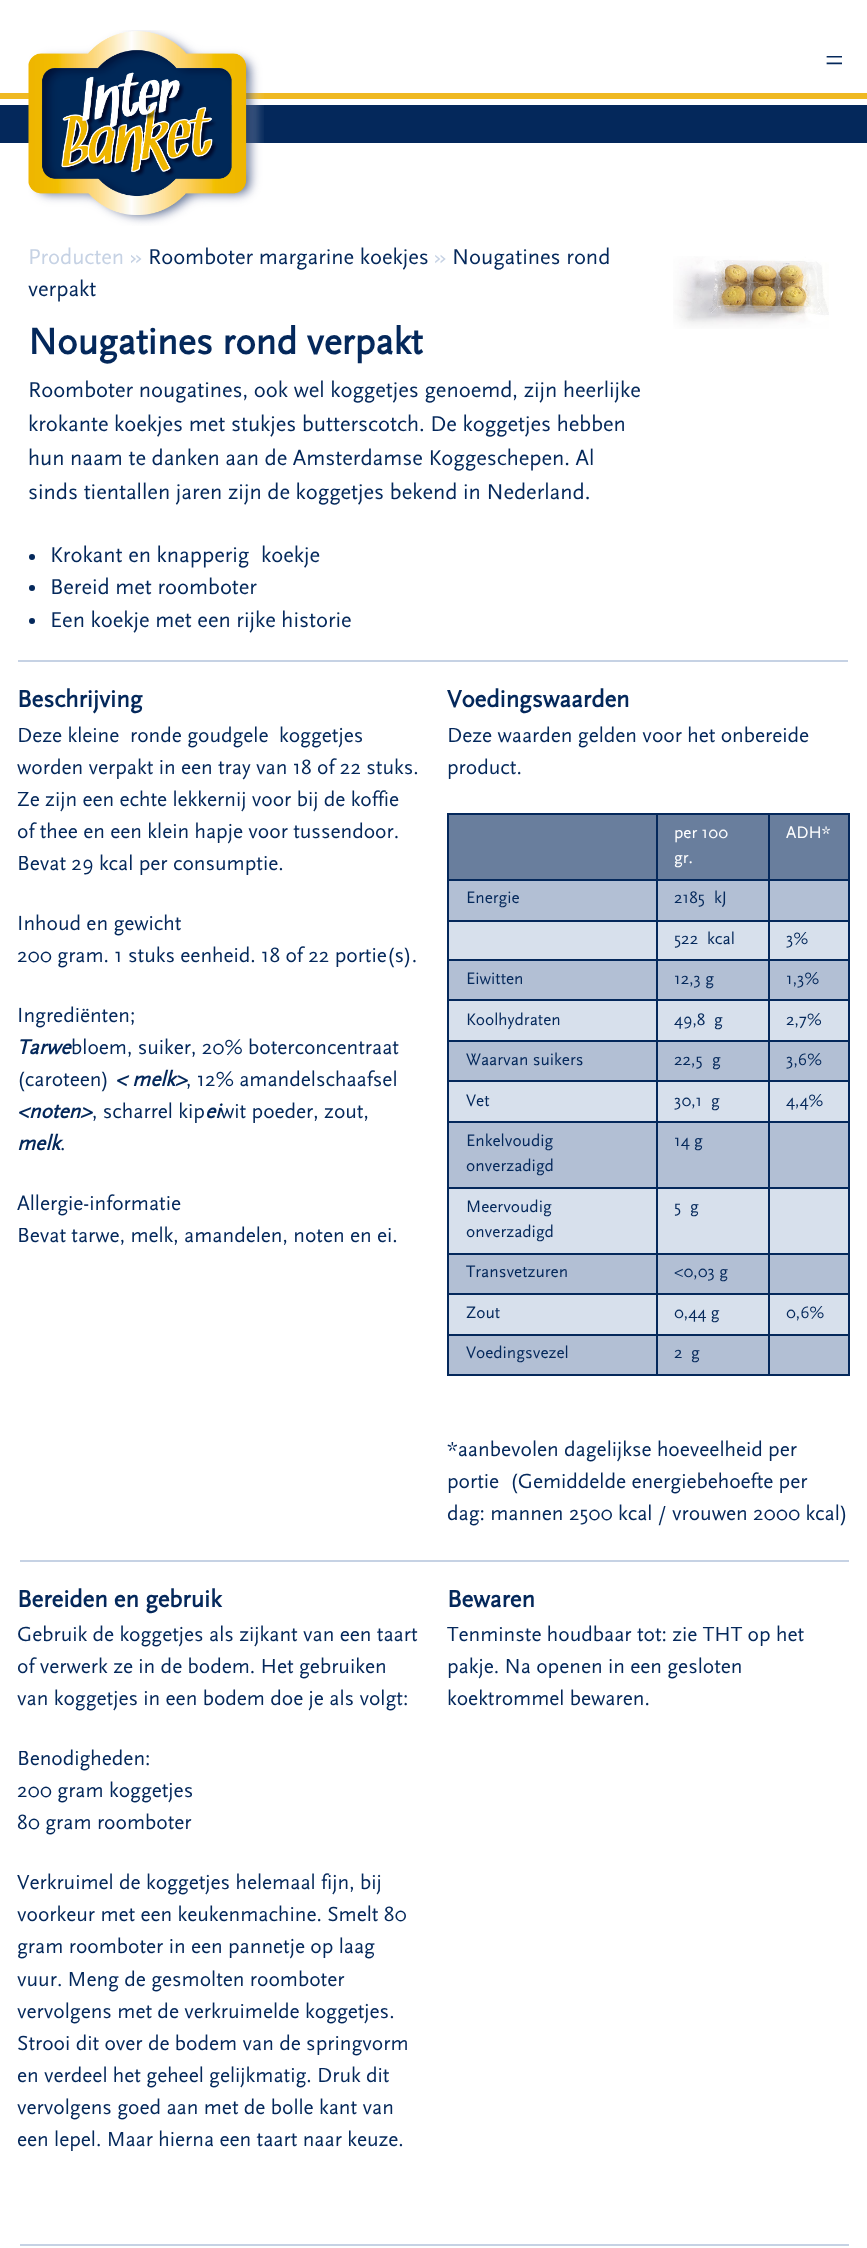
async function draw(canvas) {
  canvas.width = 867
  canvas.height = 2248
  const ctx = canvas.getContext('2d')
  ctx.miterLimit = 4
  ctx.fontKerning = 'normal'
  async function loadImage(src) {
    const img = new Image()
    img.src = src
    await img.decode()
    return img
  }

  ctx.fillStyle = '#fff'
  ctx.fillRect(0, 0, 867, 2248)
  ctx.fillStyle = '#efb922'
  ctx.fillRect(0, 93, 867, 6)
  ctx.fillStyle = '#04285b'
  ctx.fillRect(0, 105, 867, 38)
  ctx.drawImage(await loadImage('image0.png'), 28, 30, 236, 196)
  ctx.font = '33px Liberation Serif'
  ctx.fillText('=', 825, 71)
  ctx.font = '100 22.5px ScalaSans'
  ctx.fillStyle = '#c6d2e4'
  ctx.fillText('Producten »', 28, 264)
  ctx.fillStyle = '#04285b'
  ctx.fillText('Roomboter margarine koekjes', 148, 264)
  ctx.fillStyle = '#c6d2e4'
  ctx.fillText('»', 434, 264)
  ctx.fillStyle = '#04285b'
  ctx.fillText('Nougatines rond', 452, 264)
  ctx.fillText('verpakt', 28, 296)
  ctx.font = 'bold 38.25px ScalaSans'
  ctx.fillText('Nougatines rond verpakt', 28, 354)
  ctx.font = '100 22.5px ScalaSans'
  ctx.fillText('Roomboter nougatines, ook wel koggetjes genoemd, zijn heerlijke', 28, 397)
  ctx.fillText('krokante koekjes met stukjes butterscotch. De koggetjes hebben', 28, 431)
  ctx.fillText('hun naam te danken aan de Amsterdamse Koggeschepen. Al', 28, 465)
  ctx.fillText('sinds tientallen jaren zijn de koggetjes bekend in Nederland.', 28, 499)
  ctx.beginPath()
  ctx.arc(32, 557, 3, 0, 2 * Math.PI)
  ctx.fill()
  ctx.fillText('Krokant en knapperig', 50, 562)
  ctx.fillText('koekje', 261, 562)
  ctx.beginPath()
  ctx.arc(32, 588, 3, 0, 2 * Math.PI)
  ctx.fill()
  ctx.fillText('Bereid met roomboter', 50, 594)
  ctx.beginPath()
  ctx.arc(32, 621, 3, 0, 2 * Math.PI)
  ctx.fill()
  ctx.fillText('Een koekje met een rijke historie', 50, 627)
  ctx.drawImage(await loadImage('image1.png'), 673, 256, 156, 73)
  ctx.fillStyle = '#c6d2e4'
  ctx.fillRect(18, 660, 830, 2)
  ctx.font = 'bold 24.75px ScalaSans'
  ctx.fillStyle = '#04285b'
  ctx.fillText('Beschrijving', 17, 707)
  ctx.font = '100 21.4px ScalaSans'
  ctx.fillText('Deze kleine', 17, 742)
  ctx.fillText('ronde goudgele', 130, 742)
  ctx.fillText('koggetjes', 279, 742)
  ctx.fillText('worden verpakt in een tray van 18 of 22 stuks.', 17, 774)
  ctx.fillText('Ze zijn een echte lekkernij voor bij de koffie', 17, 806)
  ctx.fillText('of thee en een klein hapje voor tussendoor.', 17, 838)
  ctx.fillText('Bevat 29 kcal per consumptie.', 17, 870)
  ctx.fillText('Inhoud en gewicht', 17, 930)
  ctx.fillText('200 gram. 1 stuks eenheid. 18 of 22 portie(s).', 17, 962)
  ctx.fillText('Ingrediënten;', 17, 1022)
  ctx.font = 'italic bold 21.4px ScalaSans'
  ctx.fillText('Tarwe', 17, 1054)
  ctx.font = '100 21.4px ScalaSans'
  ctx.fillText('bloem, suiker, 20% boterconcentraat', 71, 1054)
  ctx.fillText('(caroteen)', 17, 1086)
  ctx.font = 'italic bold 21.4px ScalaSans'
  ctx.fillText('< melk>', 115, 1086)
  ctx.font = '100 21.4px ScalaSans'
  ctx.fillText(', 12% amandelschaafsel', 186, 1086)
  ctx.font = 'italic bold 21.4px ScalaSans'
  ctx.fillText('<noten>', 17, 1118)
  ctx.font = '100 21.4px ScalaSans'
  ctx.fillText(', scharrel kip', 92, 1118)
  ctx.font = 'italic bold 21.4px ScalaSans'
  ctx.fillText('ei', 205, 1118)
  ctx.font = '100 21.4px ScalaSans'
  ctx.fillText('wit poeder, zout,', 220, 1118)
  ctx.font = 'italic bold 21.4px ScalaSans'
  ctx.fillText('melk', 17, 1150)
  ctx.font = '100 21.4px ScalaSans'
  ctx.fillText('.', 60, 1150)
  ctx.fillText('Allergie-informatie', 17, 1210)
  ctx.fillText('Bevat tarwe, melk, amandelen, noten en ei.', 17, 1242)
  ctx.font = 'bold 24.75px ScalaSans'
  ctx.fillText('Voedingswaarden', 447, 707)
  ctx.font = '100 21.4px ScalaSans'
  ctx.fillText('Deze waarden gelden voor het onbereide', 447, 742)
  ctx.fillText('product.', 447, 774)
  ctx.fillStyle = '#697e9d'
  ctx.fillRect(449, 815, 207, 64)
  ctx.fillStyle = '#04285b'
  ctx.fillRect(768, 813, 81, 2)
  ctx.fillRect(768, 879, 81, 2)
  ctx.fillRect(768, 920, 81, 2)
  ctx.fillRect(768, 959, 81, 2)
  ctx.fillRect(768, 999, 81, 2)
  ctx.fillRect(768, 1040, 81, 2)
  ctx.fillRect(768, 1080, 81, 2)
  ctx.fillRect(768, 1121, 81, 2)
  ctx.fillRect(768, 1187, 81, 2)
  ctx.fillRect(768, 1253, 81, 2)
  ctx.fillRect(768, 1293, 81, 2)
  ctx.fillRect(768, 1334, 81, 2)
  ctx.fillRect(848, 1334, 2, 42)
  ctx.fillRect(768, 1374, 81, 2)
  ctx.fillRect(768, 1334, 2, 42)
  ctx.fillRect(656, 1334, 114, 2)
  ctx.fillRect(768, 1293, 2, 42)
  ctx.fillRect(656, 1293, 114, 2)
  ctx.fillRect(768, 1253, 2, 42)
  ctx.fillRect(656, 1253, 114, 2)
  ctx.fillRect(768, 1187, 2, 67)
  ctx.fillRect(656, 1187, 114, 2)
  ctx.fillRect(768, 1121, 2, 67)
  ctx.fillRect(656, 1121, 114, 2)
  ctx.fillRect(768, 1080, 2, 42)
  ctx.fillRect(656, 1080, 114, 2)
  ctx.fillRect(768, 1040, 2, 42)
  ctx.fillRect(656, 1040, 114, 2)
  ctx.fillRect(768, 999, 2, 42)
  ctx.fillRect(656, 999, 114, 2)
  ctx.fillRect(768, 959, 2, 42)
  ctx.fillRect(656, 959, 114, 2)
  ctx.fillRect(768, 920, 2, 40)
  ctx.fillRect(656, 920, 114, 2)
  ctx.fillRect(768, 879, 2, 42)
  ctx.fillRect(656, 879, 114, 2)
  ctx.fillRect(768, 813, 2, 68)
  ctx.fillRect(656, 813, 114, 2)
  ctx.fillRect(656, 1374, 114, 2)
  ctx.fillRect(656, 1334, 2, 42)
  ctx.fillRect(447, 1334, 210, 2)
  ctx.fillRect(656, 1293, 2, 42)
  ctx.fillRect(447, 1293, 210, 2)
  ctx.fillRect(656, 1253, 2, 42)
  ctx.fillRect(447, 1253, 210, 2)
  ctx.fillRect(656, 1187, 2, 67)
  ctx.fillRect(447, 1187, 210, 2)
  ctx.fillRect(656, 1121, 2, 67)
  ctx.fillRect(447, 1121, 210, 2)
  ctx.fillRect(656, 1080, 2, 42)
  ctx.fillRect(447, 1080, 210, 2)
  ctx.fillRect(656, 1040, 2, 42)
  ctx.fillRect(447, 1040, 210, 2)
  ctx.fillRect(656, 999, 2, 42)
  ctx.fillRect(447, 999, 210, 2)
  ctx.fillRect(656, 959, 2, 42)
  ctx.fillRect(447, 959, 210, 2)
  ctx.fillRect(656, 920, 2, 40)
  ctx.fillRect(447, 920, 210, 2)
  ctx.fillRect(656, 879, 2, 42)
  ctx.fillRect(447, 879, 210, 2)
  ctx.fillRect(656, 813, 2, 68)
  ctx.fillRect(447, 813, 210, 2)
  ctx.fillRect(447, 1374, 210, 2)
  ctx.fillRect(447, 1334, 2, 42)
  ctx.fillRect(447, 1293, 2, 42)
  ctx.fillRect(447, 1253, 2, 42)
  ctx.fillRect(447, 1187, 2, 67)
  ctx.fillRect(447, 1121, 2, 67)
  ctx.fillRect(447, 1080, 2, 42)
  ctx.fillRect(447, 1040, 2, 42)
  ctx.fillRect(447, 999, 2, 42)
  ctx.fillRect(447, 959, 2, 42)
  ctx.fillRect(447, 920, 2, 40)
  ctx.fillRect(447, 879, 2, 42)
  ctx.fillRect(447, 813, 2, 68)
  ctx.fillStyle = '#697e9d'
  ctx.fillRect(658, 815, 110, 64)
  ctx.font = '100 17.25px ScalaSans'
  ctx.fillStyle = '#fff'
  ctx.fillText('per 100', 674, 838)
  ctx.fillText('gr.', 674, 863)
  ctx.fillStyle = '#697e9d'
  ctx.fillRect(770, 815, 78, 64)
  ctx.fillStyle = '#04285b'
  ctx.fillRect(848, 1293, 2, 42)
  ctx.fillRect(848, 1253, 2, 42)
  ctx.fillRect(848, 1187, 2, 67)
  ctx.fillRect(848, 1121, 2, 67)
  ctx.fillRect(848, 1080, 2, 42)
  ctx.fillRect(848, 1040, 2, 42)
  ctx.fillRect(848, 999, 2, 42)
  ctx.fillRect(848, 959, 2, 42)
  ctx.fillRect(848, 920, 2, 40)
  ctx.fillRect(848, 879, 2, 42)
  ctx.fillRect(848, 813, 2, 68)
  ctx.fillStyle = '#fff'
  ctx.fillText('ADH*', 786, 838)
  ctx.fillStyle = '#b2bfd4'
  ctx.fillRect(449, 881, 207, 39)
  ctx.fillStyle = '#04285b'
  ctx.fillText('Energie', 466, 903)
  ctx.fillStyle = '#b2bfd4'
  ctx.fillRect(658, 881, 110, 39)
  ctx.fillStyle = '#04285b'
  ctx.fillText('2185', 674, 903)
  ctx.fillText('kJ', 714, 903)
  ctx.fillStyle = '#b2bfd4'
  ctx.fillRect(770, 881, 78, 39)
  ctx.fillStyle = '#d7e0ec'
  ctx.fillRect(449, 922, 207, 37)
  ctx.fillRect(658, 922, 110, 37)
  ctx.fillStyle = '#04285b'
  ctx.fillText('522', 674, 944)
  ctx.fillText('kcal', 707, 944)
  ctx.fillStyle = '#d7e0ec'
  ctx.fillRect(770, 922, 78, 37)
  ctx.fillStyle = '#04285b'
  ctx.fillText('3%', 786, 944)
  ctx.fillStyle = '#b2bfd4'
  ctx.fillRect(449, 961, 207, 38)
  ctx.fillStyle = '#04285b'
  ctx.fillText('Eiwitten', 466, 984)
  ctx.fillStyle = '#b2bfd4'
  ctx.fillRect(658, 961, 110, 38)
  ctx.fillStyle = '#04285b'
  ctx.fillText('12,3 g', 674, 984)
  ctx.fillStyle = '#b2bfd4'
  ctx.fillRect(770, 961, 78, 38)
  ctx.fillStyle = '#04285b'
  ctx.fillText('1,3%', 786, 984)
  ctx.fillStyle = '#d7e0ec'
  ctx.fillRect(449, 1001, 207, 39)
  ctx.fillStyle = '#04285b'
  ctx.fillText('Koolhydraten', 466, 1025)
  ctx.fillStyle = '#d7e0ec'
  ctx.fillRect(658, 1001, 110, 39)
  ctx.fillStyle = '#04285b'
  ctx.fillText('49,8', 674, 1025)
  ctx.fillText('g', 714, 1025)
  ctx.fillStyle = '#d7e0ec'
  ctx.fillRect(770, 1001, 78, 39)
  ctx.fillStyle = '#04285b'
  ctx.fillText('2,7%', 786, 1025)
  ctx.fillStyle = '#b2bfd4'
  ctx.fillRect(449, 1042, 207, 38)
  ctx.fillStyle = '#04285b'
  ctx.fillText('Waarvan suikers', 466, 1065)
  ctx.fillStyle = '#b2bfd4'
  ctx.fillRect(658, 1042, 110, 38)
  ctx.fillStyle = '#04285b'
  ctx.fillText('22,5', 674, 1065)
  ctx.fillText('g', 712, 1065)
  ctx.fillStyle = '#b2bfd4'
  ctx.fillRect(770, 1042, 78, 38)
  ctx.fillStyle = '#04285b'
  ctx.fillText('3,6%', 786, 1065)
  ctx.fillStyle = '#d7e0ec'
  ctx.fillRect(449, 1082, 207, 39)
  ctx.fillStyle = '#04285b'
  ctx.fillText('Vet', 466, 1106)
  ctx.fillStyle = '#d7e0ec'
  ctx.fillRect(658, 1082, 110, 39)
  ctx.fillStyle = '#04285b'
  ctx.fillText('30,1', 674, 1106)
  ctx.fillText('g', 711, 1106)
  ctx.fillStyle = '#d7e0ec'
  ctx.fillRect(770, 1082, 78, 39)
  ctx.fillStyle = '#04285b'
  ctx.fillText('4,4%', 786, 1106)
  ctx.fillStyle = '#b2bfd4'
  ctx.fillRect(449, 1123, 207, 64)
  ctx.fillStyle = '#04285b'
  ctx.fillText('Enkelvoudig', 466, 1146)
  ctx.fillText('onverzadigd', 466, 1171)
  ctx.fillStyle = '#b2bfd4'
  ctx.fillRect(658, 1123, 110, 64)
  ctx.fillStyle = '#04285b'
  ctx.fillText('14 g', 674, 1146)
  ctx.fillStyle = '#b2bfd4'
  ctx.fillRect(770, 1123, 78, 64)
  ctx.fillStyle = '#d7e0ec'
  ctx.fillRect(449, 1189, 207, 64)
  ctx.fillStyle = '#04285b'
  ctx.fillText('Meervoudig', 466, 1212)
  ctx.fillText('onverzadigd', 466, 1237)
  ctx.fillStyle = '#d7e0ec'
  ctx.fillRect(658, 1189, 110, 64)
  ctx.fillStyle = '#04285b'
  ctx.fillText('5', 674, 1212)
  ctx.fillText('g', 690, 1212)
  ctx.fillStyle = '#d7e0ec'
  ctx.fillRect(770, 1189, 78, 64)
  ctx.fillStyle = '#b2bfd4'
  ctx.fillRect(449, 1255, 207, 38)
  ctx.fillStyle = '#04285b'
  ctx.fillText('Transvetzuren', 466, 1277)
  ctx.fillStyle = '#b2bfd4'
  ctx.fillRect(658, 1255, 110, 38)
  ctx.fillStyle = '#04285b'
  ctx.fillText('<0,03 g', 674, 1277)
  ctx.fillStyle = '#b2bfd4'
  ctx.fillRect(770, 1255, 78, 38)
  ctx.fillStyle = '#d7e0ec'
  ctx.fillRect(449, 1295, 207, 39)
  ctx.fillStyle = '#04285b'
  ctx.fillText('Zout', 466, 1318)
  ctx.fillStyle = '#d7e0ec'
  ctx.fillRect(658, 1295, 110, 39)
  ctx.fillStyle = '#04285b'
  ctx.fillText('0,44 g', 674, 1318)
  ctx.fillStyle = '#d7e0ec'
  ctx.fillRect(770, 1295, 78, 39)
  ctx.fillStyle = '#04285b'
  ctx.fillText('0,6%', 786, 1318)
  ctx.fillStyle = '#b2bfd4'
  ctx.fillRect(449, 1336, 207, 38)
  ctx.fillStyle = '#04285b'
  ctx.fillText('Voedingsvezel', 466, 1358)
  ctx.fillStyle = '#b2bfd4'
  ctx.fillRect(658, 1336, 110, 38)
  ctx.fillStyle = '#04285b'
  ctx.fillText('2', 674, 1358)
  ctx.fillText('g', 691, 1358)
  ctx.fillStyle = '#b2bfd4'
  ctx.fillRect(770, 1336, 78, 38)
  ctx.font = '100 21.4px ScalaSans'
  ctx.fillStyle = '#04285b'
  ctx.fillText('*aanbevolen dagelijkse hoeveelheid per', 447, 1456)
  ctx.fillText('portie', 447, 1488)
  ctx.fillText('(Gemiddelde energiebehoefte per', 510, 1488)
  ctx.fillText('dag: mannen 2500 kcal / vrouwen 2000 kcal)', 447, 1520)
  ctx.fillStyle = '#c6d2e4'
  ctx.fillRect(20, 1560, 829, 2)
  ctx.font = 'bold 24.75px ScalaSans'
  ctx.fillStyle = '#04285b'
  ctx.fillText('Bereiden en gebruik', 17, 1607)
  ctx.font = '100 21.4px ScalaSans'
  ctx.fillText('Gebruik de koggetjes als zijkant van een taart', 17, 1641)
  ctx.fillText('of verwerk ze in de bodem. Het gebruiken', 17, 1673)
  ctx.fillText('van koggetjes in een bodem doe je als volgt:', 17, 1705)
  ctx.fillText('Benodigheden:', 17, 1765)
  ctx.fillText('200 gram koggetjes', 17, 1797)
  ctx.fillText('80 gram roomboter', 17, 1829)
  ctx.fillText('Verkruimel de koggetjes helemaal fijn, bij', 17, 1889)
  ctx.fillText('voorkeur met een keukenmachine. Smelt 80', 17, 1921)
  ctx.fillText('gram roomboter in een pannetje op laag', 17, 1953)
  ctx.fillText('vuur. Meng de gesmolten roomboter', 17, 1986)
  ctx.fillText('vervolgens met de verkruimelde koggetjes.', 17, 2018)
  ctx.fillText('Strooi dit over de bodem van de springvorm', 17, 2050)
  ctx.fillText('en verdeel het geheel gelijkmatig. Druk dit', 17, 2082)
  ctx.fillText('vervolgens goed aan met de bolle kant van', 17, 2114)
  ctx.fillText('een lepel. Maar hierna een taart naar keuze.', 17, 2146)
  ctx.font = 'bold 24.75px ScalaSans'
  ctx.fillText('Bewaren', 447, 1607)
  ctx.font = '100 21.4px ScalaSans'
  ctx.fillText('Tenminste houdbaar tot: zie THT op het', 447, 1641)
  ctx.fillText('pakje. Na openen in een gesloten', 447, 1673)
  ctx.fillText('koektrommel bewaren.', 447, 1705)
  ctx.fillStyle = '#c6d2e4'
  ctx.fillRect(20, 2244, 829, 2)
}

draw(document.querySelector('canvas'))
